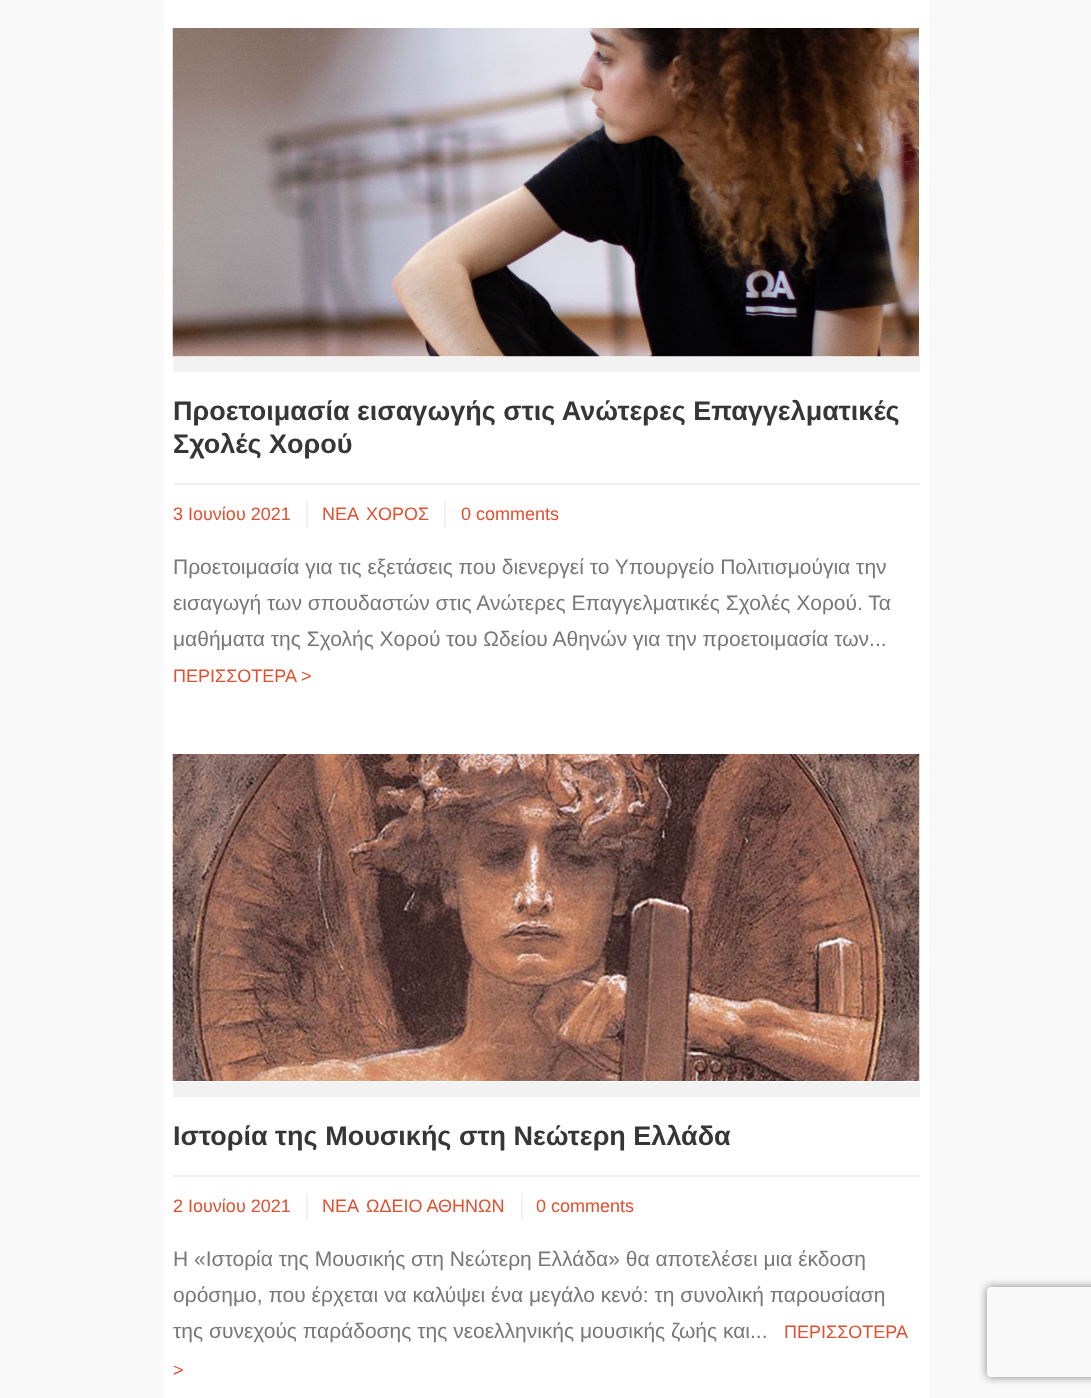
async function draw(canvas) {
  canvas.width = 1091
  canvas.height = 1398
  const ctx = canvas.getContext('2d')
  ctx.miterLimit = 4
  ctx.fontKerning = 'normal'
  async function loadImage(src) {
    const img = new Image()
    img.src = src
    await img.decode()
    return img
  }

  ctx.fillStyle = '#f9f9f9'
  ctx.fillRect(0, 0, 1091, 1398)
  ctx.fillStyle = '#fff'
  ctx.fillRect(164, 0, 765, 1398)
  ctx.fillStyle = '#f2f2f2'
  ctx.fillRect(173, 357, 747, 15)
  ctx.drawImage(await loadImage('image0.png'), 172, 28, 747, 329)
  ctx.fillRect(173, 483, 747, 2)
  ctx.font = 'bold 27px Liberation Sans'
  ctx.fillStyle = '#363636'
  ctx.fillText('Προετοιμασία εισαγωγής στις Ανώτερες Επαγγελματικές', 173, 420)
  ctx.fillText('Σχολές Χορού', 173, 453)
  ctx.fillStyle = '#f2f2f2'
  ctx.fillRect(306, 501, 2, 27)
  ctx.font = '18px Liberation Sans'
  ctx.fillStyle = '#e14f2e'
  ctx.fillText('3 Ιουνίου 2021', 173, 520)
  ctx.fillStyle = '#f2f2f2'
  ctx.fillRect(444, 501, 2, 27)
  ctx.fillStyle = '#e14f2e'
  ctx.fillText('ΝΕΑ', 322, 520)
  ctx.fillText('ΧΟΡΟΣ', 366, 520)
  ctx.fillText('0 comments', 461, 520)
  ctx.font = '21px Liberation Sans'
  ctx.fillStyle = '#777'
  ctx.fillText('Προετοιμασία για τις εξετάσεις που διενεργεί το Υπουργείο Πολιτισμούγια την', 173, 574)
  ctx.fillText('εισαγωγή των σπουδαστών στις Ανώτερες Επαγγελματικές Σχολές Χορού. Τα', 173, 610)
  ctx.fillText('μαθήματα της Σχολής Χορού του Ωδείου Αθηνών για την προετοιμασία των...', 173, 646)
  ctx.font = '18px Liberation Sans'
  ctx.fillStyle = '#e14f2e'
  ctx.fillText('ΠΕΡΙΣΣΟΤΕΡΑ >', 173, 682)
  ctx.fillStyle = '#f2f2f2'
  ctx.fillRect(173, 1082, 747, 15)
  ctx.drawImage(await loadImage('image1.png'), 172, 754, 748, 327)
  ctx.fillRect(173, 1175, 747, 2)
  ctx.font = 'bold 27px Liberation Sans'
  ctx.fillStyle = '#363636'
  ctx.fillText('Ιστορία της Μουσικής στη Νεώτερη Ελλάδα', 173, 1145)
  ctx.fillStyle = '#f2f2f2'
  ctx.fillRect(306, 1193, 2, 27)
  ctx.font = '18px Liberation Sans'
  ctx.fillStyle = '#e14f2e'
  ctx.fillText('2 Ιουνίου 2021', 173, 1212)
  ctx.fillStyle = '#f2f2f2'
  ctx.fillRect(521, 1193, 2, 27)
  ctx.fillStyle = '#e14f2e'
  ctx.fillText('ΝΕΑ', 322, 1212)
  ctx.fillText('ΩΔΕΙΟ ΑΘΗΝΩΝ', 366, 1212)
  ctx.fillText('0 comments', 536, 1212)
  ctx.font = '21px Liberation Sans'
  ctx.fillStyle = '#777'
  ctx.fillText('Η «Ιστορία της Μουσικής στη Νεώτερη Ελλάδα» θα αποτελέσει μια έκδοση', 173, 1266)
  ctx.fillText('ορόσημο, που έρχεται να καλύψει ένα μεγάλο κενό: τη συνολική παρουσίαση', 173, 1302)
  ctx.fillText('της συνεχούς παράδοσης της νεοελληνικής μουσικής ζωής και...', 173, 1338)
  ctx.font = '18px Liberation Sans'
  ctx.fillStyle = '#e14f2e'
  ctx.fillText('ΠΕΡΙΣΣΟΤΕΡΑ', 784, 1338)
  ctx.fillText('>', 173, 1376)
  ctx.save()
  ctx.beginPath()
  ctx.moveTo(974, 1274)
  ctx.lineTo(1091, 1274)
  ctx.lineTo(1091, 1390)
  ctx.lineTo(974, 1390)
  ctx.closePath()
  ctx.moveTo(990, 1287)
  ctx.lineTo(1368, 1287)
  ctx.bezierCurveTo(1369.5, 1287, 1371, 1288.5, 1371, 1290)
  ctx.lineTo(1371, 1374)
  ctx.bezierCurveTo(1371, 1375.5, 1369.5, 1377, 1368, 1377)
  ctx.lineTo(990, 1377)
  ctx.bezierCurveTo(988.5, 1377, 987, 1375.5, 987, 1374)
  ctx.lineTo(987, 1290)
  ctx.bezierCurveTo(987, 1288.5, 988.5, 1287, 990, 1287)
  ctx.closePath()
  ctx.clip('evenodd')
  ctx.fillStyle = '#808080'
  ctx.filter = 'blur(4px)'
  ctx.beginPath()
  ctx.roundRect(987, 1287, 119, 90, 3)
  ctx.fill()
  ctx.filter = 'none'
  ctx.restore()
}

draw(document.querySelector('canvas'))
